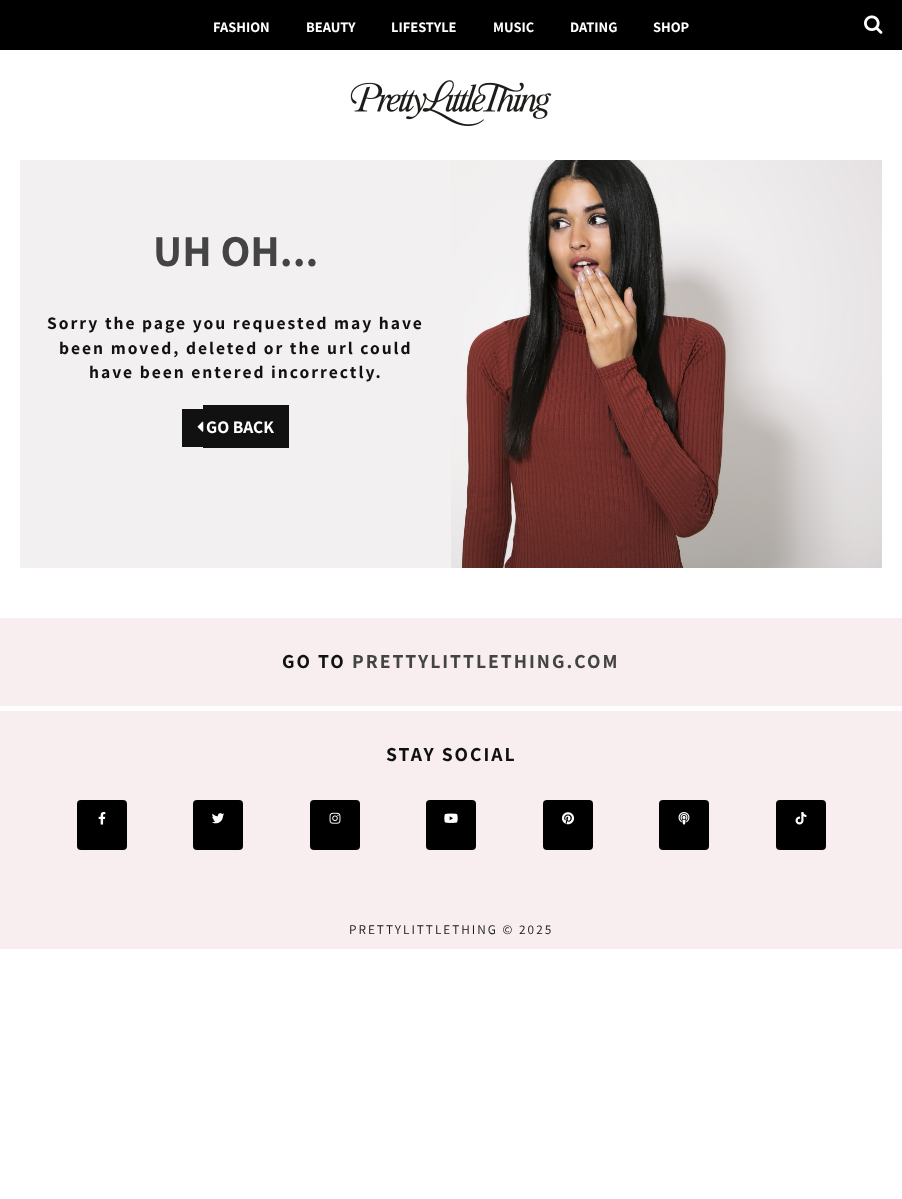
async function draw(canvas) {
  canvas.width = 902
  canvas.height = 1199
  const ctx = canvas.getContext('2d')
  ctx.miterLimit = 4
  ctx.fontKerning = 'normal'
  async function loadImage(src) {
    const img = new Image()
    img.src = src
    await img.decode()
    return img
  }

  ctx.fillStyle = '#fff'
  ctx.fillRect(0, 0, 902, 1199)
  ctx.fillStyle = '#000'
  ctx.fillRect(0, 0, 902, 50)
  ctx.font = 'bold 14.5px Assistant'
  ctx.fillStyle = '#fff'
  ctx.fillText('FASHION', 213, 32)
  ctx.fillText('BEAUTY', 306, 32)
  ctx.fillText('LIFESTYLE', 391, 32)
  ctx.fillText('MUSIC', 493, 32)
  ctx.fillText('DATING', 570, 32)
  ctx.fillText('SHOP', 653, 32)
  ctx.drawImage(await loadImage('image0.png'), 864, 15, 19, 19)
  ctx.drawImage(await loadImage('image1.png'), 350, 80, 202, 46)
  ctx.fillStyle = '#f2f0f1'
  ctx.fillRect(20, 160, 431, 408)
  ctx.font = 'bold 44px Assistant'
  ctx.fillStyle = '#444'
  ctx.fillText('UH OH...', 153, 266)
  ctx.letterSpacing = '2px'
  ctx.font = 'bold 17.6px Assistant'
  ctx.fillStyle = '#111'
  ctx.fillText('Sorry the page you requested may have', 47, 329)
  ctx.fillText('been moved, deleted or the url could', 59, 354)
  ctx.fillText('have been entered incorrectly.', 89, 378)
  ctx.fillRect(182, 409, 21, 38)
  ctx.fillRect(203, 405, 86, 43)
  ctx.drawImage(await loadImage('image2.png'), 197, 421, 7, 11)
  ctx.letterSpacing = '0px'
  ctx.fillStyle = '#fff'
  ctx.fillText('GO BACK', 206, 433)
  ctx.drawImage(await loadImage('image3.png'), 451, 160, 431, 408)
  ctx.fillStyle = '#f8eeef'
  ctx.fillRect(0, 618, 902, 331)
  ctx.letterSpacing = '2px'
  ctx.font = 'bold 19.75px Assistant'
  ctx.fillStyle = '#111'
  ctx.fillText('GO TO', 282, 668)
  ctx.fillStyle = '#444'
  ctx.fillText('PRETTYLITTLETHING.COM', 352, 668)
  ctx.fillStyle = '#fff'
  ctx.fillRect(0, 706, 902, 5)
  ctx.fillStyle = '#111'
  ctx.fillText('STAY SOCIAL', 386, 761)
  ctx.fillStyle = '#000'
  ctx.beginPath()
  ctx.roundRect(77, 800, 50, 50, 4)
  ctx.fill()
  ctx.drawImage(await loadImage('image4.png'), 98, 812, 8, 13)
  ctx.beginPath()
  ctx.roundRect(193, 800, 50, 50, 4)
  ctx.fill()
  ctx.drawImage(await loadImage('image5.png'), 212, 813, 13, 11)
  ctx.beginPath()
  ctx.roundRect(310, 800, 50, 50, 4)
  ctx.fill()
  ctx.drawImage(await loadImage('image6.png'), 329, 812, 12, 12)
  ctx.beginPath()
  ctx.roundRect(426, 800, 50, 50, 4)
  ctx.fill()
  ctx.drawImage(await loadImage('image7.png'), 444, 813, 14, 10)
  ctx.beginPath()
  ctx.roundRect(543, 800, 50, 50, 4)
  ctx.fill()
  ctx.drawImage(await loadImage('image8.png'), 562, 812, 13, 13)
  ctx.beginPath()
  ctx.roundRect(659, 800, 50, 50, 4)
  ctx.fill()
  ctx.drawImage(await loadImage('image9.png'), 678, 812, 12, 13)
  ctx.beginPath()
  ctx.roundRect(776, 800, 50, 50, 4)
  ctx.fill()
  ctx.drawImage(await loadImage('image10.png'), 795, 812, 12, 13)
  ctx.font = '13.25px Assistant'
  ctx.fillStyle = '#111'
  ctx.fillText('PRETTYLITTLETHING © 2025', 349, 934)
}

draw(document.querySelector('canvas'))
